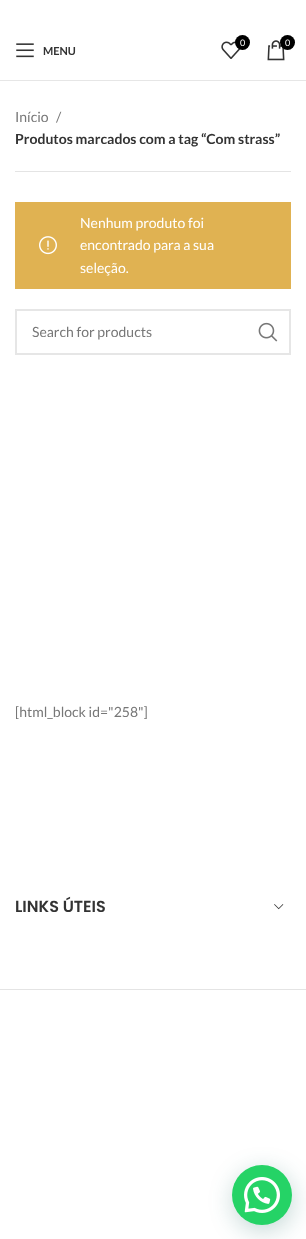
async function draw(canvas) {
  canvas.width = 306
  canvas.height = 1239
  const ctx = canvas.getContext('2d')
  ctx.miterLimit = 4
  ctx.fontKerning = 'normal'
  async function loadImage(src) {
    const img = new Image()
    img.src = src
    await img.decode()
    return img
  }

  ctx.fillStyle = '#fff'
  ctx.fillRect(0, 0, 306, 1239)
  ctx.fillStyle = '#e6e6e6'
  ctx.fillRect(0, 80, 306, 1)
  ctx.drawImage(await loadImage('image0.png'), 221, 41, 20, 18)
  ctx.fillStyle = '#000'
  ctx.beginPath()
  ctx.arc(242.5, 42.5, 7.5, 0, 2 * Math.PI)
  ctx.fill()
  ctx.font = '9px Lato'
  ctx.fillStyle = '#fff'
  ctx.fillText('0', 240, 46)
  ctx.drawImage(await loadImage('image1.png'), 267, 40, 18, 21)
  ctx.fillStyle = '#000'
  ctx.beginPath()
  ctx.arc(287.5, 42.5, 7.5, 0, 2 * Math.PI)
  ctx.fill()
  ctx.fillStyle = '#fff'
  ctx.fillText('0', 285, 46)
  ctx.drawImage(await loadImage('image2.png'), 16, 43, 18, 15)
  ctx.font = 'bold 11px Lato'
  ctx.fillStyle = '#333'
  ctx.fillText('MENU', 43, 55)
  ctx.fillStyle = '#e4e4e4'
  ctx.fillRect(15, 171, 276, 1)
  ctx.font = '14px Lato'
  ctx.fillStyle = '#777'
  ctx.fillText('Início', 15, 122)
  ctx.fillText('/', 56, 122)
  ctx.font = 'bold 14px Lato'
  ctx.fillStyle = '#333'
  ctx.fillText('Produtos marcados com a tag “Com strass”', 15, 144)
  ctx.fillStyle = '#e0b252'
  ctx.fillRect(15, 202, 276, 87)
  ctx.font = '14px Lato'
  ctx.fillStyle = '#fff'
  ctx.fillText('Nenhum produto foi', 80, 228)
  ctx.drawImage(await loadImage('image3.png'), 39, 236, 18, 19)
  ctx.fillText('encontrado para a sua', 80, 250)
  ctx.fillText('seleção.', 80, 273)
  ctx.strokeStyle = '#e6e6e6'
  ctx.lineWidth = 2
  ctx.strokeRect(16, 310, 274, 44)
  ctx.fillStyle = '#777'
  ctx.fillText('Search for products', 32, 337)
  ctx.drawImage(await loadImage('image4.png'), 258, 322, 20, 20)
  ctx.fillText('[html_block id="258"]', 15, 717)
  ctx.font = '600 16px Poppins'
  ctx.fillStyle = '#333'
  ctx.fillText('LINKS ÚTEIS', 15, 912)
  ctx.drawImage(await loadImage('image5.png'), 274, 904, 10, 6)
  ctx.fillStyle = '#e4e4e4'
  ctx.fillRect(0, 989, 306, 1)
  ctx.fillStyle = '#075e543d'
  ctx.filter = 'blur(12px)'
  ctx.beginPath()
  ctx.roundRect(233, 1171, 60, 60, 30)
  ctx.fill()
  ctx.filter = 'none'
  ctx.fillStyle = '#25d366'
  ctx.beginPath()
  ctx.arc(262, 1195, 30, 0, 2 * Math.PI)
  ctx.fill()
  ctx.drawImage(await loadImage('image6.png'), 244, 1177, 36, 36)
}

draw(document.querySelector('canvas'))
